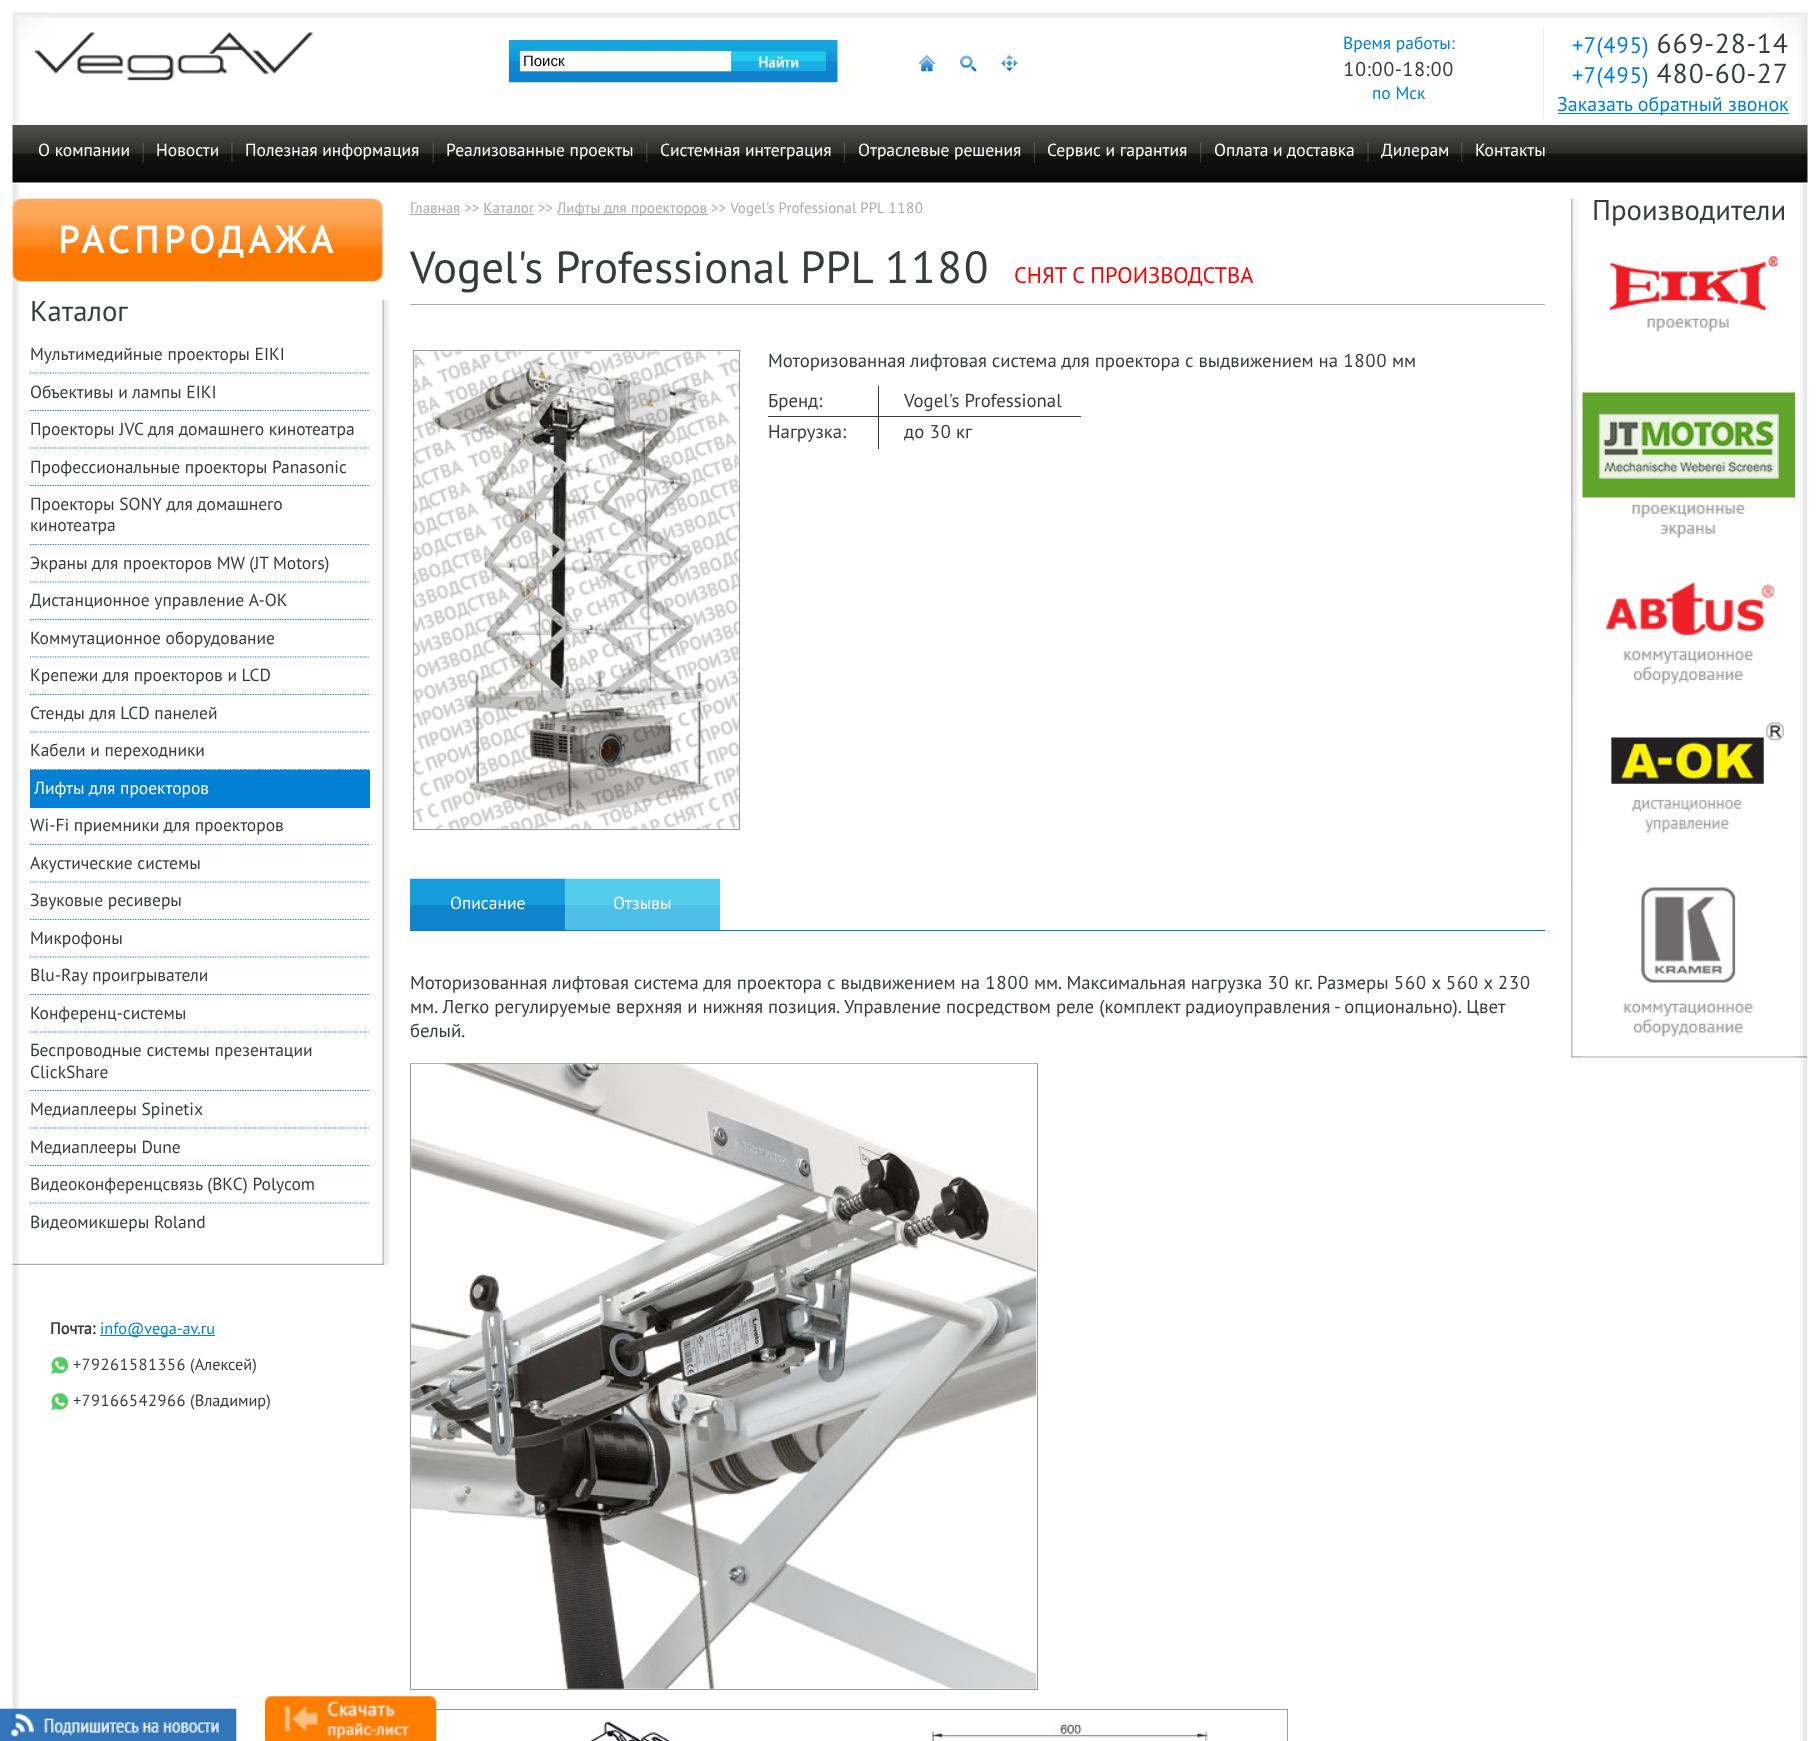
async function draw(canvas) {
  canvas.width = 1820
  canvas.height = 1741
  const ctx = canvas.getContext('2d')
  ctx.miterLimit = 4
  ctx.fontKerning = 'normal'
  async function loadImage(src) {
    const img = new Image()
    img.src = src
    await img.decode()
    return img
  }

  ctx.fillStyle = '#fff'
  ctx.fillRect(0, 0, 1820, 1741)
  ctx.drawImage(await loadImage('image0.png'), 12, 12, 1796, 7)
  ctx.drawImage(await loadImage('image1.png'), 12, 12, 38, 113)
  ctx.drawImage(await loadImage('image2.png'), 1770, 12, 38, 113)
  ctx.drawImage(await loadImage('image3.png'), 35, 32, 278, 49)
  ctx.drawImage(await loadImage('image4.png'), 508, 40, 330, 43)
  ctx.fillRect(520, 51, 211, 20)
  ctx.font = '15px Liberation Sans'
  ctx.fillStyle = '#000'
  ctx.fillText('Поиск', 523, 66)
  ctx.drawImage(await loadImage('image5.png'), 731, 51, 95, 20)
  ctx.drawImage(await loadImage('image6.png'), 918, 55, 17, 17)
  ctx.drawImage(await loadImage('image7.png'), 960, 55, 17, 17)
  ctx.drawImage(await loadImage('image8.png'), 1001, 55, 17, 17)
  ctx.font = '17.5px PT Sans'
  ctx.fillStyle = '#007fd3'
  ctx.fillText('Время работы:', 1343, 49)
  ctx.font = '20px PT Sans'
  ctx.fillStyle = '#383b3c'
  ctx.fillText('10:00-18:00', 1343, 76)
  ctx.font = '17.5px PT Sans'
  ctx.fillStyle = '#007fd3'
  ctx.fillText('по Мск', 1372, 99)
  ctx.fillStyle = '#eaeaea'
  ctx.fillRect(1543, 29, 1, 90)
  ctx.font = '22.5px PT Sans'
  ctx.fillStyle = '#007fd3'
  ctx.fillText('+7(495)', 1572, 53)
  ctx.font = '27.5px PT Sans'
  ctx.fillStyle = '#383b3c'
  ctx.fillText('669-28-14', 1656, 53)
  ctx.font = '22.5px PT Sans'
  ctx.fillStyle = '#007fd3'
  ctx.fillText('+7(495)', 1572, 83)
  ctx.font = '27.5px PT Sans'
  ctx.fillStyle = '#383b3c'
  ctx.fillText('480-60-27', 1656, 83)
  ctx.fillStyle = '#007fd3'
  ctx.fillRect(1558, 113, 231, 1)
  ctx.font = '20px PT Sans'
  ctx.fillText('Заказать обратный звонок', 1557, 111)
  ctx.drawImage(await loadImage('image9.png'), 12, 125, 1796, 58)
  ctx.drawImage(await loadImage('image10.png'), 142, 142, 2, 21)
  ctx.font = '17.5px PT Sans'
  ctx.fillStyle = '#fff'
  ctx.fillText('О компании', 38, 156)
  ctx.drawImage(await loadImage('image11.png'), 231, 142, 2, 21)
  ctx.fillText('Новости', 156, 156)
  ctx.drawImage(await loadImage('image10.png'), 432, 142, 2, 21)
  ctx.fillText('Полезная информация', 245, 156)
  ctx.drawImage(await loadImage('image11.png'), 646, 142, 2, 21)
  ctx.fillText('Реализованные проекты', 446, 156)
  ctx.drawImage(await loadImage('image12.png'), 843, 142, 2, 21)
  ctx.fillText('Системная интеграция', 660, 156)
  ctx.drawImage(await loadImage('image12.png'), 1033, 142, 2, 21)
  ctx.fillText('Отраслевые решения', 858, 156)
  ctx.drawImage(await loadImage('image13.png'), 1200, 142, 2, 21)
  ctx.fillText('Сервис и гарантия', 1047, 156)
  ctx.drawImage(await loadImage('image10.png'), 1367, 142, 2, 21)
  ctx.fillText('Оплата и доставка', 1214, 156)
  ctx.drawImage(await loadImage('image11.png'), 1461, 142, 2, 21)
  ctx.fillText('Дилерам', 1381, 156)
  ctx.fillText('Контакты', 1475, 156)
  ctx.drawImage(await loadImage('image14.png'), 12, 183, 8, 1558)
  ctx.drawImage(await loadImage('image15.png'), 1800, 184, 8, 1557)
  ctx.drawImage(await loadImage('image16.png'), 12, 198, 371, 84)
  ctx.letterSpacing = '5px'
  ctx.font = 'bold 37.5px PT Sans'
  ctx.fillText('РАСПРОДАЖА', 58, 253)
  ctx.drawImage(await loadImage('image17.png'), 382, 300, 8, 965)
  ctx.drawImage(await loadImage('image18.png'), 12, 1263, 372, 2)
  ctx.letterSpacing = '0px'
  ctx.font = '28.75px PT Sans'
  ctx.fillStyle = '#383b3c'
  ctx.fillText('Каталог', 30, 321)
  ctx.beginPath()
  ctx.moveTo(30, 373)
  ctx.lineTo(370, 373)
  ctx.strokeStyle = '#007fd3'
  ctx.lineWidth = 1.2
  ctx.setLineDash([1.25, 1.25])
  ctx.stroke()
  ctx.font = '17.5px PT Sans'
  ctx.fillText('Мультимедийные проекторы EIKI', 30, 360)
  ctx.beginPath()
  ctx.moveTo(30, 410.5)
  ctx.lineTo(370, 410.5)
  ctx.stroke()
  ctx.fillText('Объективы и лампы EIKI', 30, 398)
  ctx.beginPath()
  ctx.moveTo(30, 448)
  ctx.lineTo(370, 448)
  ctx.stroke()
  ctx.fillText('Проекторы JVC для домашнего кинотеатра', 30, 435)
  ctx.beginPath()
  ctx.moveTo(30, 485.5)
  ctx.lineTo(370, 485.5)
  ctx.stroke()
  ctx.fillText('Профессиональные проекторы Panasonic', 30, 473)
  ctx.beginPath()
  ctx.moveTo(30, 544.5)
  ctx.lineTo(370, 544.5)
  ctx.stroke()
  ctx.fillText('Проекторы SONY для домашнего', 30, 510)
  ctx.fillText('кинотеатра', 30, 531)
  ctx.beginPath()
  ctx.moveTo(30, 582)
  ctx.lineTo(370, 582)
  ctx.stroke()
  ctx.fillText('Экраны для проекторов MW (JT Motors)', 30, 569)
  ctx.beginPath()
  ctx.moveTo(30, 619.5)
  ctx.lineTo(370, 619.5)
  ctx.stroke()
  ctx.fillText('Дистанционное управление A-OK', 30, 606)
  ctx.beginPath()
  ctx.moveTo(30, 657)
  ctx.lineTo(370, 657)
  ctx.stroke()
  ctx.fillText('Коммутационное оборудование', 30, 644)
  ctx.beginPath()
  ctx.moveTo(30, 694.5)
  ctx.lineTo(370, 694.5)
  ctx.stroke()
  ctx.fillText('Крепежи для проекторов и LCD', 30, 681)
  ctx.beginPath()
  ctx.moveTo(30, 732)
  ctx.lineTo(370, 732)
  ctx.stroke()
  ctx.fillText('Стенды для LCD панелей', 30, 719)
  ctx.beginPath()
  ctx.moveTo(30, 769.5)
  ctx.lineTo(370, 769.5)
  ctx.stroke()
  ctx.fillText('Кабели и переходники', 30, 756)
  ctx.fillStyle = '#007fd3'
  ctx.fillRect(30, 770, 340, 38)
  ctx.fillStyle = '#fff'
  ctx.fillText('Лифты для проекторов', 34, 794)
  ctx.beginPath()
  ctx.moveTo(30, 844.5)
  ctx.lineTo(370, 844.5)
  ctx.stroke()
  ctx.fillStyle = '#383b3c'
  ctx.fillText('Wi-Fi приемники для проекторов', 30, 831)
  ctx.beginPath()
  ctx.moveTo(30, 882)
  ctx.lineTo(370, 882)
  ctx.stroke()
  ctx.fillText('Акустические системы', 30, 869)
  ctx.beginPath()
  ctx.moveTo(30, 919.5)
  ctx.lineTo(370, 919.5)
  ctx.stroke()
  ctx.fillText('Звуковые ресиверы', 30, 906)
  ctx.beginPath()
  ctx.moveTo(30, 957)
  ctx.lineTo(370, 957)
  ctx.stroke()
  ctx.fillText('Микрофоны', 30, 944)
  ctx.beginPath()
  ctx.moveTo(30, 994.5)
  ctx.lineTo(370, 994.5)
  ctx.stroke()
  ctx.fillText('Blu-Ray проигрыватели', 30, 981)
  ctx.beginPath()
  ctx.moveTo(30, 1032)
  ctx.lineTo(370, 1032)
  ctx.stroke()
  ctx.fillText('Конференц-системы', 30, 1019)
  ctx.beginPath()
  ctx.moveTo(30, 1090.5)
  ctx.lineTo(370, 1090.5)
  ctx.stroke()
  ctx.fillText('Беспроводные системы презентации', 30, 1056)
  ctx.fillText('ClickShare', 30, 1078)
  ctx.beginPath()
  ctx.moveTo(30, 1128)
  ctx.lineTo(370, 1128)
  ctx.stroke()
  ctx.fillText('Медиаплееры Spinetix', 30, 1115)
  ctx.beginPath()
  ctx.moveTo(30, 1165.5)
  ctx.lineTo(370, 1165.5)
  ctx.stroke()
  ctx.fillText('Медиаплееры Dune', 30, 1153)
  ctx.beginPath()
  ctx.moveTo(30, 1203)
  ctx.lineTo(370, 1203)
  ctx.stroke()
  ctx.fillText('Видеоконференцсвязь (ВКС) Polycom', 30, 1190)
  ctx.fillText('Видеомикшеры Roland', 30, 1228)
  ctx.font = 'bold 16.25px PT Sans'
  ctx.fillText('Почта:', 50, 1334)
  ctx.fillStyle = '#007fd3'
  ctx.fillRect(100, 1335, 115, 1)
  ctx.font = '16.25px PT Sans'
  ctx.fillText('info@vega-av.ru', 100, 1334)
  ctx.drawImage(await loadImage('image19.png'), 50, 1356, 19, 19)
  ctx.fillStyle = '#383b3c'
  ctx.fillText('+79261581356 (Алексей)', 73, 1370)
  ctx.drawImage(await loadImage('image20.png'), 50, 1392, 19, 19)
  ctx.fillText('+79166542966 (Владимир)', 73, 1406)
  ctx.font = '15px PT Sans'
  ctx.fillStyle = '#ababab'
  ctx.fillText('Главная >> Каталог', 410, 213)
  ctx.fillRect(410, 214, 50, 1)
  ctx.fillText('>>', 538, 213)
  ctx.fillRect(558, 214, 150, 1)
  ctx.fillText('Лифты для проекторов >> Vogel\'s Professional PPL 1180', 557, 213)
  ctx.fillRect(484, 214, 50, 1)
  ctx.fillStyle = '#a9a9a9'
  ctx.fillRect(410, 304, 1135, 1)
  ctx.font = '45px PT Sans'
  ctx.fillStyle = '#383b3c'
  ctx.fillText('Vogel\'s Professional PPL 1180', 410, 283)
  ctx.font = '22.5px PT Sans'
  ctx.fillStyle = '#f80000'
  ctx.fillText('СНЯТ С ПРОИЗВОДСТВА', 1014, 283)
  ctx.strokeStyle = '#999'
  ctx.lineWidth = 1
  ctx.setLineDash([])
  ctx.strokeRect(413.5, 350.5, 326, 479)
  ctx.drawImage(await loadImage('image22.png'), 413, 352, 299, 476)
  ctx.drawImage(await loadImage('image21.png'), 414, 351, 325, 478)
  ctx.font = '18.75px PT Sans'
  ctx.fillStyle = '#383b3c'
  ctx.fillText('Моторизованная лифтовая система для проектора с выдвижением на 1800 мм', 768, 367)
  ctx.fillText('Бренд:', 768, 407)
  ctx.fillRect(878, 416, 203, 1)
  ctx.fillRect(878, 416, 1, 33)
  ctx.fillRect(768, 416, 111, 1)
  ctx.fillRect(878, 386, 1, 32)
  ctx.fillText('Vogel\'s Professional', 904, 407)
  ctx.fillText('Нагрузка:', 768, 438)
  ctx.fillText('до 30 кг', 904, 438)
  ctx.fillStyle = '#007fd3'
  ctx.fillRect(410, 930, 1135, 1)
  ctx.drawImage(await loadImage('image23.png'), 410, 878, 155, 52)
  ctx.font = '17.5px PT Sans'
  ctx.fillStyle = '#fff'
  ctx.fillText('Описание', 450, 909)
  ctx.drawImage(await loadImage('image24.png'), 565, 878, 155, 52)
  ctx.fillText('Отзывы', 613, 909)
  ctx.font = '18.75px PT Sans'
  ctx.fillStyle = '#383b3c'
  ctx.fillText('Моторизованная лифтовая система для проектора с выдвижением на 1800 мм. Максимальная нагрузка 30 кг. Размеры 560 x 560 x 230', 410, 989)
  ctx.fillText('мм. Легко регулируемые верхняя и нижняя позиция. Управление посредством реле (комплект радиоуправления - опционально). Цвет', 410, 1013)
  ctx.fillText('белый.', 410, 1037)
  ctx.strokeRect(410.5, 1063.5, 627, 626)
  ctx.drawImage(await loadImage('image25.png'), 411, 1063, 626, 626)
  ctx.strokeRect(410.5, 1709.5, 877, 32)
  ctx.drawImage(await loadImage('image26.png'), 590, 1721, 618, 20)
  ctx.drawImage(await loadImage('image27.png'), 1571, 198, 8, 860)
  ctx.drawImage(await loadImage('image28.png'), 1571, 1056, 237, 2)
  ctx.font = '28.75px PT Sans'
  ctx.fillText('Производители', 1592, 220)
  ctx.drawImage(await loadImage('image29.png'), 1609, 256, 169, 76)
  ctx.drawImage(await loadImage('image30.png'), 1582, 392, 213, 146)
  ctx.drawImage(await loadImage('image31.png'), 1606, 582, 168, 102)
  ctx.drawImage(await loadImage('image32.png'), 1611, 722, 173, 111)
  ctx.drawImage(await loadImage('image33.png'), 1582, 887, 213, 170)
  ctx.drawImage(await loadImage('image34.png'), 0, 1708, 237, 33)
  ctx.drawImage(await loadImage('image35.png'), 265, 1696, 172, 45)
}

draw(document.querySelector('canvas'))
